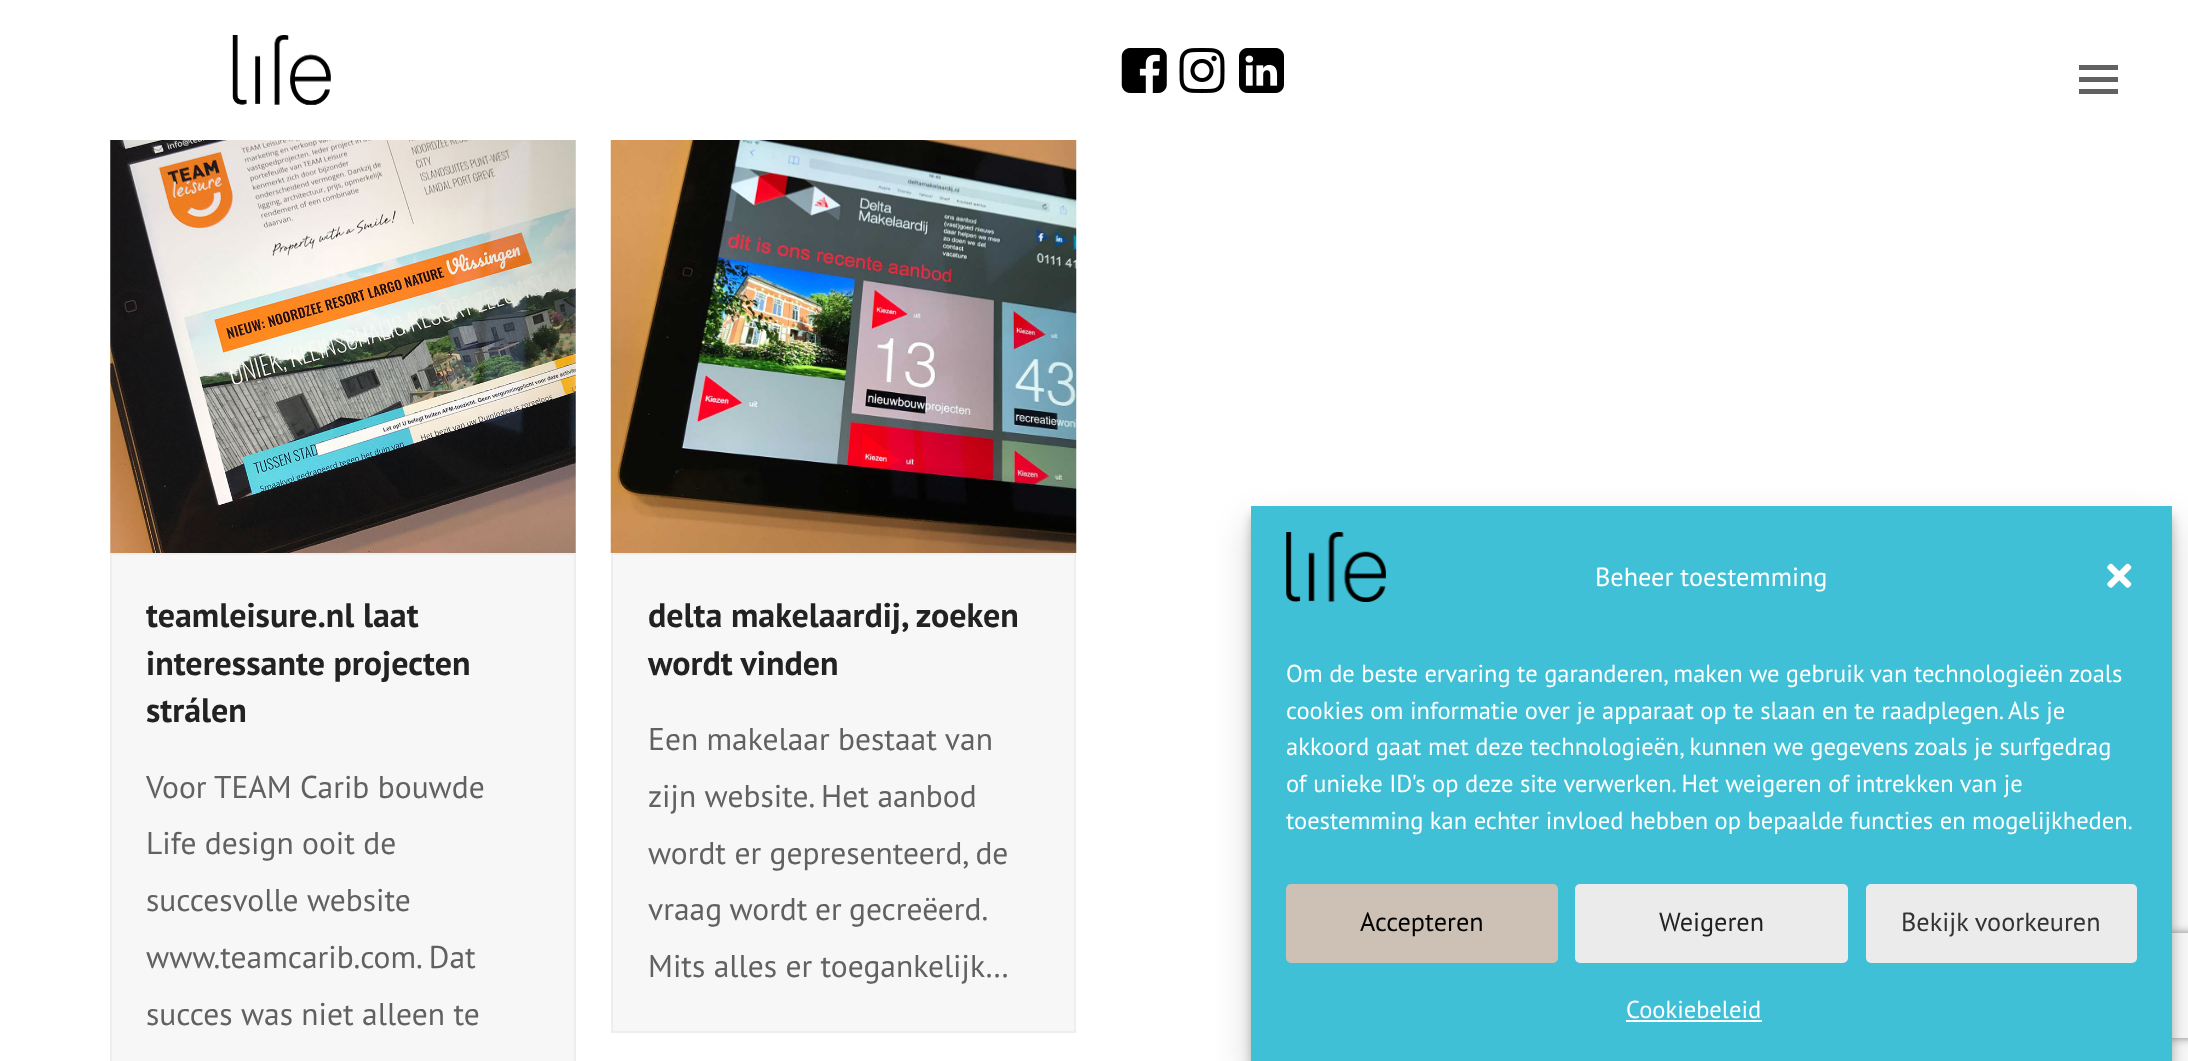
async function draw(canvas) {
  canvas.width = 2188
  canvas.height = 1061
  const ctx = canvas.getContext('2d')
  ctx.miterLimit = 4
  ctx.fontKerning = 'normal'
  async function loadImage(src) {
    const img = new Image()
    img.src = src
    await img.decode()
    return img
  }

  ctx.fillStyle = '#fff'
  ctx.fillRect(0, 0, 2188, 1061)
  ctx.drawImage(await loadImage('image0.png'), 232, 35, 99, 70)
  ctx.drawImage(await loadImage('image1.png'), 1121, 48, 46, 45)
  ctx.drawImage(await loadImage('image2.png'), 1179, 48, 46, 45)
  ctx.drawImage(await loadImage('image3.png'), 1239, 48, 45, 45)
  ctx.fillStyle = '#616161'
  ctx.fillRect(2079, 77, 39, 5)
  ctx.fillRect(2079, 65, 39, 5)
  ctx.fillRect(2079, 89, 39, 5)
  ctx.drawImage(await loadImage('image4.png'), 110, 140, 466, 413)
  ctx.fillStyle = '#f7f7f7'
  ctx.beginPath()
  ctx.rect(111, 554, 464, 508)
  ctx.fill()
  ctx.strokeStyle = '#eee'
  ctx.lineWidth = 2
  ctx.stroke()
  ctx.font = 'bold 34px PT Sans'
  ctx.fillStyle = '#222'
  ctx.fillText('teamleisure.nl laat', 146, 627)
  ctx.fillText('interessante projecten', 146, 675)
  ctx.fillText('strálen', 146, 722)
  ctx.font = '31.5px PT Sans'
  ctx.fillStyle = '#616161'
  ctx.fillText('Voor TEAM Carib bouwde', 146, 798)
  ctx.fillText('Life design ooit de', 146, 854)
  ctx.fillText('succesvolle website', 146, 911)
  ctx.fillText('www.teamcarib.com. Dat', 146, 968)
  ctx.fillText('succes was niet alleen te', 146, 1025)
  ctx.drawImage(await loadImage('image5.png'), 610, 140, 467, 413)
  ctx.fillStyle = '#f7f7f7'
  ctx.beginPath()
  ctx.rect(612, 554, 463, 478)
  ctx.fill()
  ctx.stroke()
  ctx.font = 'bold 34px PT Sans'
  ctx.fillStyle = '#222'
  ctx.fillText('delta makelaardij, zoeken', 648, 627)
  ctx.fillText('wordt vinden', 648, 675)
  ctx.font = '31.5px PT Sans'
  ctx.fillStyle = '#616161'
  ctx.fillText('Een makelaar bestaat van', 648, 750)
  ctx.fillText('zijn website. Het aanbod', 648, 807)
  ctx.fillText('wordt er gepresenteerd, de', 648, 864)
  ctx.wordSpacing = '-1px'
  ctx.fillText('vraag wordt er gecreëerd.', 648, 920)
  ctx.wordSpacing = '0px'
  ctx.fillText('Mits alles er toegankelijk…', 648, 977)
  ctx.fillStyle = '#0000003b'
  ctx.filter = 'blur(5px)'
  ctx.beginPath()
  ctx.rect(1251, 516, 921, 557)
  ctx.fill()
  ctx.filter = 'none'
  ctx.fillStyle = '#00000030'
  ctx.filter = 'blur(17.5px)'
  ctx.beginPath()
  ctx.rect(1251, 523, 921, 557)
  ctx.fill()
  ctx.filter = 'none'
  ctx.save()
  ctx.beginPath()
  ctx.moveTo(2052, 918)
  ctx.lineTo(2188, 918)
  ctx.lineTo(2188, 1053)
  ctx.lineTo(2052, 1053)
  ctx.closePath()
  ctx.moveTo(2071, 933)
  ctx.lineTo(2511, 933)
  ctx.bezierCurveTo(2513, 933, 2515, 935, 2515, 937)
  ctx.lineTo(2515, 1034)
  ctx.bezierCurveTo(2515, 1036, 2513, 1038, 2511, 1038)
  ctx.lineTo(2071, 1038)
  ctx.bezierCurveTo(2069, 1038, 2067, 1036, 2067, 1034)
  ctx.lineTo(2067, 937)
  ctx.bezierCurveTo(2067, 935, 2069, 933, 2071, 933)
  ctx.closePath()
  ctx.clip('evenodd')
  ctx.fillStyle = '#808080'
  ctx.filter = 'blur(4.5px)'
  ctx.beginPath()
  ctx.roundRect(2067, 933, 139, 105, 4)
  ctx.fill()
  ctx.filter = 'none'
  ctx.restore()
  ctx.fillStyle = '#3fc0d6'
  ctx.fillRect(1251, 506, 921, 555)
  ctx.drawImage(await loadImage('image6.png'), 1286, 532, 100, 70)
  ctx.font = '26.25px PT Sans'
  ctx.fillStyle = '#fff'
  ctx.fillText('Beheer toestemming', 1595, 586)
  ctx.drawImage(await loadImage('image7.png'), 2107, 563, 25, 25)
  ctx.font = '24.5px PT Sans'
  ctx.fillText('Om de beste ervaring te garanderen, maken we gebruik van technologieën zoals', 1286, 682)
  ctx.fillText('cookies om informatie over je apparaat op te slaan en te raadplegen. Als je', 1286, 719)
  ctx.fillText('akkoord gaat met deze technologieën, kunnen we gegevens zoals je surfgedrag', 1286, 755)
  ctx.fillText('of unieke ID\'s op deze site verwerken. Het weigeren of intrekken van je', 1286, 792)
  ctx.fillText('toestemming kan echter invloed hebben op bepaalde functies en mogelijkheden.', 1286, 829)
  ctx.fillStyle = '#ccc1b4'
  ctx.beginPath()
  ctx.roundRect(1287, 885, 270, 77, 4)
  ctx.fill()
  ctx.strokeStyle = '#ccc1b4'
  ctx.stroke()
  ctx.font = '26.25px PT Sans'
  ctx.fillStyle = '#000'
  ctx.fillText('Accepteren', 1360, 931)
  ctx.fillStyle = '#ebebeb'
  ctx.beginPath()
  ctx.roundRect(1576, 885, 271, 77, 4)
  ctx.fill()
  ctx.strokeStyle = '#ebebeb'
  ctx.stroke()
  ctx.fillStyle = '#222'
  ctx.fillText('Weigeren', 1659, 931)
  ctx.fillStyle = '#ebebeb'
  ctx.beginPath()
  ctx.roundRect(1867, 885, 269, 77, 4)
  ctx.fill()
  ctx.stroke()
  ctx.fillStyle = '#333'
  ctx.fillText('Bekijk voorkeuren', 1901, 931)
  ctx.font = '24.5px PT Sans'
  ctx.fillStyle = '#fff'
  ctx.fillText('Cookiebeleid', 1626, 1018)
  ctx.fillRect(1626, 1020, 136, 2)
}

draw(document.querySelector('canvas'))
